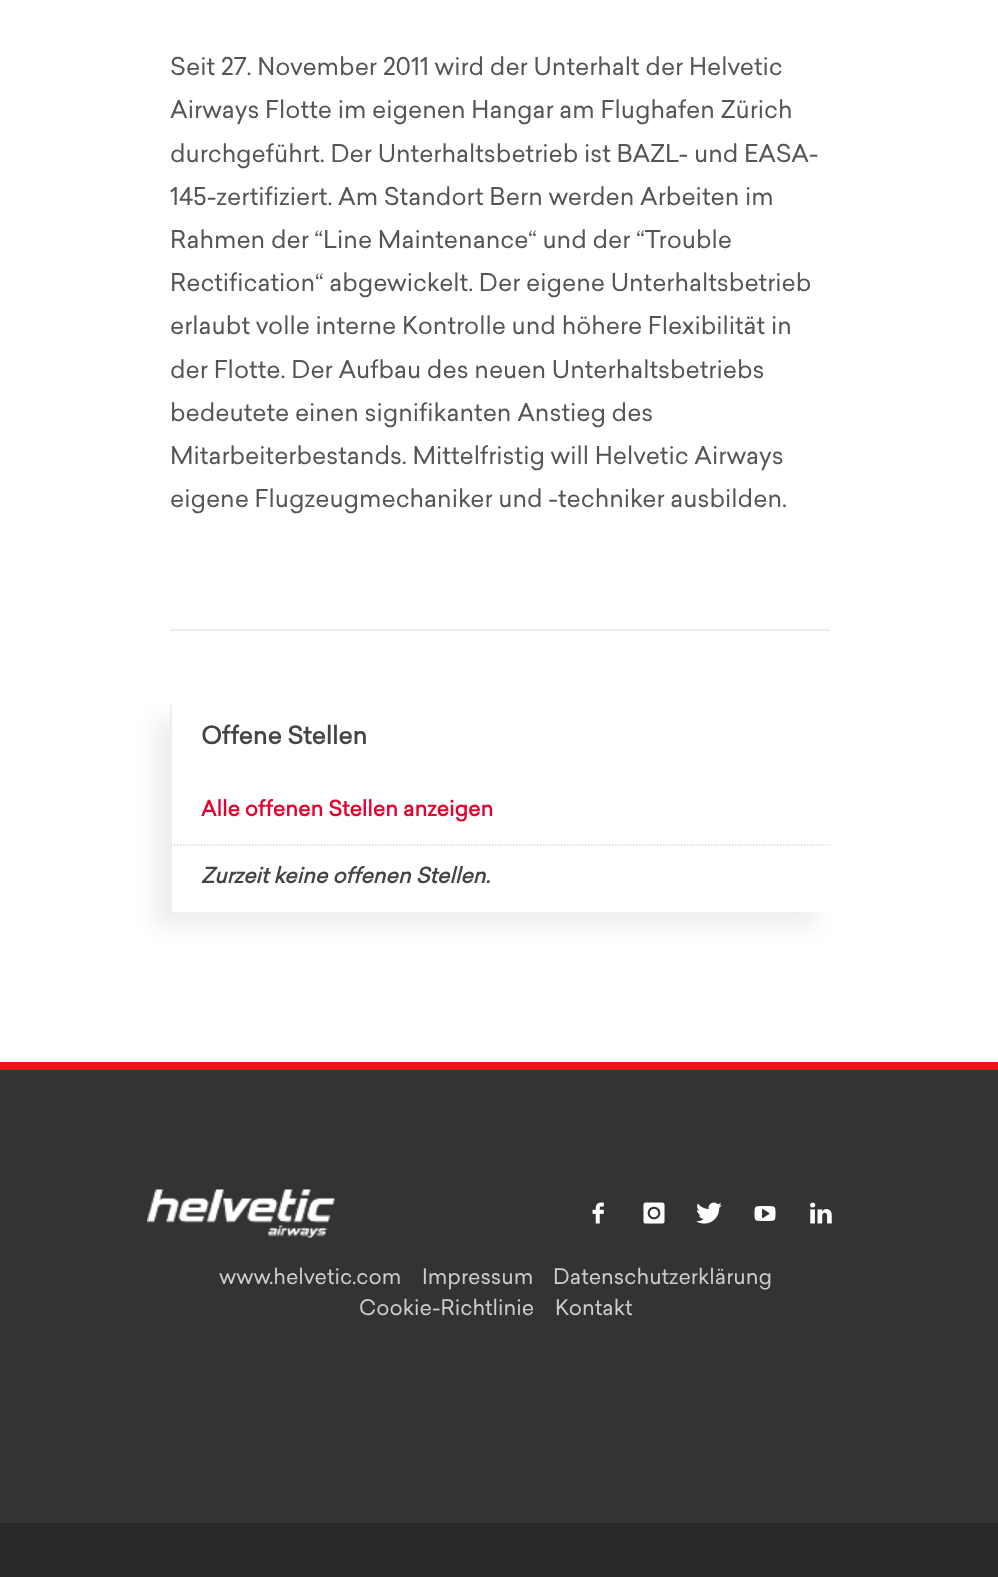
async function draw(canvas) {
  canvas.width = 998
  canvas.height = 1577
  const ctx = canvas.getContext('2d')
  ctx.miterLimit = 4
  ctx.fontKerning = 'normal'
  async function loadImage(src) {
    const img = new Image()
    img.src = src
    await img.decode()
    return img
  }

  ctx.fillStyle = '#fff'
  ctx.fillRect(0, 0, 998, 1577)
  ctx.fillStyle = '#eee'
  ctx.fillRect(170, 629, 660, 2)
  ctx.font = '24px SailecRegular'
  ctx.fillStyle = '#555'
  ctx.fillText('Seit 27. November 2011 wird der Unterhalt der Helvetic', 170, 75)
  ctx.fillText('Airways Flotte im eigenen Hangar am Flughafen Zürich', 170, 118)
  ctx.fillText('durchgeführt. Der Unterhaltsbetrieb ist BAZL- und EASA-', 170, 162)
  ctx.fillText('145-zertifiziert. Am Standort Bern werden Arbeiten im', 170, 205)
  ctx.fillText('Rahmen der “Line Maintenance“ und der “Trouble', 170, 248)
  ctx.fillText('Rectification“ abgewickelt. Der eigene Unterhaltsbetrieb', 170, 291)
  ctx.fillText('erlaubt volle interne Kontrolle und höhere Flexibilität in', 170, 334)
  ctx.fillText('der Flotte. Der Aufbau des neuen Unterhaltsbetriebs', 170, 378)
  ctx.fillText('bedeutete einen signifikanten Anstieg des', 170, 421)
  ctx.fillText('Mitarbeiterbestands. Mittelfristig will Helvetic Airways', 170, 464)
  ctx.fillText('eigene Flugzeugmechaniker und -techniker ausbilden.', 170, 507)
  ctx.save()
  ctx.beginPath()
  ctx.moveTo(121, 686)
  ctx.lineTo(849, 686)
  ctx.lineTo(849, 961)
  ctx.lineTo(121, 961)
  ctx.closePath()
  ctx.moveTo(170, 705)
  ctx.lineTo(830, 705)
  ctx.lineTo(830, 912)
  ctx.lineTo(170, 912)
  ctx.closePath()
  ctx.clip('evenodd')
  ctx.fillStyle = '#00000012'
  ctx.filter = 'blur(11px)'
  ctx.beginPath()
  ctx.rect(155, 720, 660, 207)
  ctx.fill()
  ctx.filter = 'none'
  ctx.restore()
  ctx.fillStyle = '#eee'
  ctx.fillRect(170, 705, 2, 207)
  ctx.font = 'bold 24px SailecRegular'
  ctx.fillStyle = '#444'
  ctx.fillText('Offene Stellen', 201, 744)
  ctx.font = 'bold 21px SailecRegular'
  ctx.fillStyle = '#e4032e'
  ctx.fillText('Alle offenen Stellen anzeigen', 201, 816)
  ctx.beginPath()
  ctx.moveTo(171, 845)
  ctx.lineTo(829.5, 845)
  ctx.strokeStyle = '#ddd'
  ctx.lineWidth = 1.5
  ctx.setLineDash([1.5, 1.5])
  ctx.stroke()
  ctx.font = 'italic bold 21px SailecRegular'
  ctx.fillStyle = '#444'
  ctx.fillText('Zurzeit keine offenen Stellen.', 201, 883)
  ctx.fillStyle = '#333'
  ctx.fillRect(0, 1070, 998, 453)
  ctx.fillStyle = '#e31818'
  ctx.fillRect(0, 1062, 998, 8)
  ctx.drawImage(await loadImage('image0.png'), 147, 1189, 188, 49)
  ctx.drawImage(await loadImage('image1.png'), 592, 1202, 12, 22)
  ctx.drawImage(await loadImage('image2.png'), 643, 1202, 22, 22)
  ctx.drawImage(await loadImage('image3.png'), 696, 1202, 26, 22)
  ctx.drawImage(await loadImage('image4.png'), 754, 1206, 22, 15)
  ctx.drawImage(await loadImage('image5.png'), 810, 1202, 22, 22)
  ctx.font = '21px SailecRegular'
  ctx.fillStyle = '#ccc'
  ctx.fillText('www.helvetic.com', 219, 1284)
  ctx.fillText('Impressum', 422, 1284)
  ctx.fillText('Datenschutzerklärung', 553, 1284)
  ctx.fillText('Cookie-Richtlinie', 359, 1315)
  ctx.fillText('Kontakt', 555, 1315)
  ctx.fillStyle = '#292929'
  ctx.fillRect(0, 1523, 998, 54)
}

draw(document.querySelector('canvas'))
